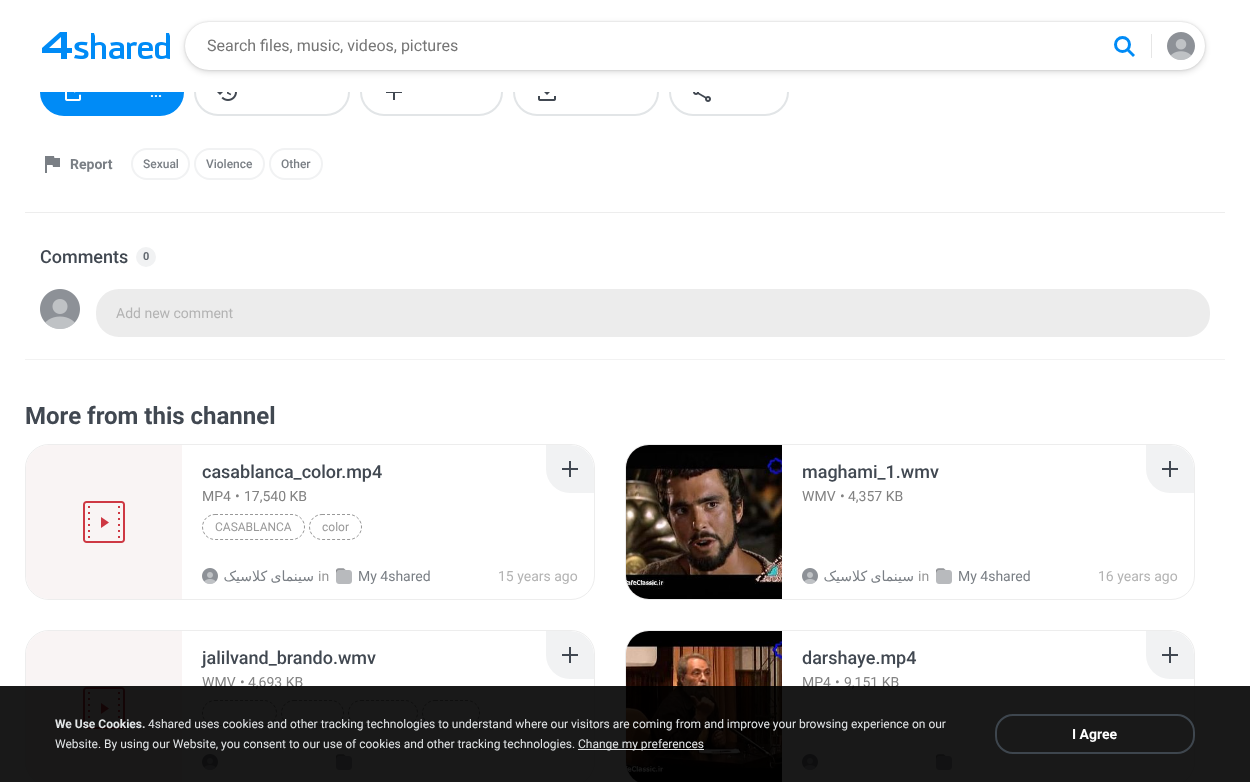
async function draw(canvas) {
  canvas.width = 1250
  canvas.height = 782
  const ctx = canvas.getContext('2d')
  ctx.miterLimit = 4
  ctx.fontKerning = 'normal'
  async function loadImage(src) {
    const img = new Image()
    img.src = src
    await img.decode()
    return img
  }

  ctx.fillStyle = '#fff'
  ctx.fillRect(0, 0, 1250, 782)
  ctx.fillStyle = '#008bf6'
  ctx.beginPath()
  ctx.roundRect(41, 69, 142, 46, 23)
  ctx.fill()
  ctx.strokeStyle = '#008bf6'
  ctx.lineWidth = 2
  ctx.stroke()
  ctx.beginPath()
  ctx.roundRect(195, 69, 154, 46, 23)
  ctx.strokeStyle = '#e2e5e7'
  ctx.stroke()
  ctx.beginPath()
  ctx.roundRect(361, 69, 141, 46, 23)
  ctx.stroke()
  ctx.fillStyle = '#414851'
  ctx.fillRect(386, 92, 16, 1)
  ctx.fillRect(393, 84, 2, 16)
  ctx.beginPath()
  ctx.roundRect(514, 69, 144, 46, 23)
  ctx.stroke()
  ctx.beginPath()
  ctx.roundRect(670, 69, 118, 46, 23)
  ctx.stroke()
  ctx.fillStyle = '#fff'
  ctx.fillRect(40, 68, 749, 24)
  ctx.fillStyle = '#00000026'
  ctx.filter = 'blur(1px)'
  ctx.beginPath()
  ctx.roundRect(185, 22, 1020, 48, 24)
  ctx.fill()
  ctx.filter = 'none'
  ctx.filter = 'blur(3px)'
  ctx.beginPath()
  ctx.roundRect(185, 24, 1020, 48, 24)
  ctx.fill()
  ctx.filter = 'none'
  ctx.fillStyle = '#fff'
  ctx.beginPath()
  ctx.roundRect(185, 22, 1020, 48, 24)
  ctx.fill()
  ctx.drawImage(await loadImage('image0.png'), 42, 32, 128, 27)
  ctx.font = '16px Roboto'
  ctx.fillStyle = '#757575'
  ctx.fillText('Search files, music, videos, pictures', 207, 51)
  ctx.beginPath()
  ctx.arc(1122.5, 44.5, 7, 0, 2 * Math.PI)
  ctx.strokeStyle = '#008bf6'
  ctx.lineWidth = 3
  ctx.stroke()
  ctx.fillStyle = '#008bf6'
  ctx.beginPath()
  ctx.moveTo(1133, 57)
  ctx.lineTo(1127, 51)
  ctx.lineTo(1129, 49)
  ctx.lineTo(1135, 55)
  ctx.closePath()
  ctx.fill('evenodd')
  ctx.fillStyle = '#e6e6e6'
  ctx.fillRect(1151, 34, 1, 24)
  ctx.drawImage(await loadImage('image1.png'), 1167, 32, 28, 28)
  ctx.fillStyle = '#ededed'
  ctx.fillRect(25, 212, 1200, 1)
  ctx.drawImage(await loadImage('image2.png'), 65, 92, 16, 9)
  ctx.font = 'bold 14px Roboto'
  ctx.fillStyle = '#fff'
  ctx.fillText('...', 150, 97)
  ctx.drawImage(await loadImage('image3.png'), 217, 92, 20, 9)
  ctx.drawImage(await loadImage('image4.png'), 538, 92, 18, 9)
  ctx.drawImage(await loadImage('image5.png'), 693, 92, 18, 10)
  ctx.drawImage(await loadImage('image6.png'), 45, 156, 15, 17)
  ctx.fillStyle = '#7a7f85'
  ctx.fillText('Report', 70, 169)
  ctx.beginPath()
  ctx.roundRect(132, 149, 57, 30, 15)
  ctx.strokeStyle = '#f1f2f3'
  ctx.lineWidth = 2
  ctx.stroke()
  ctx.font = '500 12px Roboto'
  ctx.fillText('Sexual', 143, 168)
  ctx.beginPath()
  ctx.roundRect(195, 149, 69, 30, 15)
  ctx.stroke()
  ctx.fillText('Violence', 206, 168)
  ctx.beginPath()
  ctx.roundRect(270, 149, 52, 30, 15)
  ctx.stroke()
  ctx.fillText('Other', 281, 168)
  ctx.fillStyle = '#f2f2f2'
  ctx.fillRect(25, 359, 1200, 1)
  ctx.font = '500 18px Roboto'
  ctx.fillStyle = '#414851'
  ctx.fillText('Comments', 40, 263)
  ctx.fillStyle = '#f1f2f3'
  ctx.beginPath()
  ctx.arc(146, 257, 10, 0, 2 * Math.PI)
  ctx.fill()
  ctx.font = 'bold 11px Roboto'
  ctx.fillStyle = '#646a71'
  ctx.fillText('0', 143, 260)
  ctx.drawImage(await loadImage('image7.png'), 40, 289, 40, 40)
  ctx.fillStyle = '#ececec'
  ctx.beginPath()
  ctx.roundRect(97, 290, 1112, 46, 22)
  ctx.fill()
  ctx.strokeStyle = '#ececec'
  ctx.stroke()
  ctx.font = '14px Roboto'
  ctx.fillStyle = '#b3b3b3'
  ctx.fillText('Add new comment', 116, 318)
  ctx.font = 'bold 24px Roboto'
  ctx.fillStyle = '#414851'
  ctx.fillText('More from this channel', 25, 424)
  ctx.beginPath()
  ctx.roundRect(25.5, 444.5, 569, 155, 23.5)
  ctx.strokeStyle = '#ededed'
  ctx.lineWidth = 1
  ctx.stroke()
  ctx.fillStyle = '#f9f4f4'
  ctx.beginPath()
  ctx.roundRect(26, 445, 156, 154, [23, 0, 0, 23])
  ctx.fill()
  ctx.drawImage(await loadImage('image8.png'), 83, 501, 42, 42)
  ctx.save()
  ctx.beginPath()
  ctx.roundRect(26, 445, 568, 154, 23)
  ctx.clip()
  ctx.fillStyle = '#f1f2f3'
  ctx.beginPath()
  ctx.roundRect(546, 445, 48, 48, [0, 24, 0, 24])
  ctx.fill()
  ctx.restore()
  ctx.fillStyle = '#414851'
  ctx.fillRect(562, 468, 16, 2)
  ctx.fillRect(569, 461, 2, 16)
  ctx.font = '500 18px Roboto'
  ctx.fillText('casablanca_color.mp4', 202, 478)
  ctx.font = '14px Roboto'
  ctx.fillStyle = '#828282'
  ctx.fillText('MP4', 202, 501)
  ctx.fillText('•', 235, 501)
  ctx.fillText('17,540 KB', 244, 501)
  ctx.beginPath()
  ctx.moveTo(215, 514.5)
  ctx.lineTo(292, 514.5)
  ctx.bezierCurveTo(299, 514.5, 304.5, 520, 304.5, 527)
  ctx.bezierCurveTo(304.5, 534, 299, 539.5, 292, 539.5)
  ctx.lineTo(215, 539.5)
  ctx.bezierCurveTo(208, 539.5, 202.5, 534, 202.5, 527)
  ctx.bezierCurveTo(202.5, 520, 208, 514.5, 215, 514.5)
  ctx.closePath()
  ctx.strokeStyle = '#999'
  ctx.setLineDash([3, 2])
  ctx.stroke()
  ctx.font = '12px Roboto'
  ctx.fillStyle = '#999'
  ctx.fillText('CASABLANCA', 215, 531)
  ctx.beginPath()
  ctx.moveTo(322, 514.5)
  ctx.lineTo(349, 514.5)
  ctx.bezierCurveTo(356, 514.5, 361.5, 520, 361.5, 527)
  ctx.bezierCurveTo(361.5, 534, 356, 539.5, 349, 539.5)
  ctx.lineTo(322, 539.5)
  ctx.bezierCurveTo(315, 539.5, 309.5, 534, 309.5, 527)
  ctx.bezierCurveTo(309.5, 520, 315, 514.5, 322, 514.5)
  ctx.closePath()
  ctx.stroke()
  ctx.fillText('color', 322, 531)
  ctx.drawImage(await loadImage('image9.png'), 202, 568, 16, 16)
  ctx.save()
  ctx.beginPath()
  ctx.rect(202, 568, 112, 16)
  ctx.clip()
  ctx.wordSpacing = '-1px'
  ctx.direction = 'rtl'
  ctx.font = '14px DejaVu Sans'
  ctx.fillStyle = '#7a7f85'
  ctx.fillText('سینمای کلاسیک', 314, 581)
  ctx.restore()
  ctx.font = '14px Roboto'
  ctx.fillText('in', 318, 581)
  ctx.drawImage(await loadImage('image10.png'), 336, 568, 16, 16)
  ctx.fillStyle = '#7a7f85'
  ctx.fillText('My 4shared', 358, 581)
  ctx.fillStyle = '#b3b3b3'
  ctx.fillText('15 years ago', 498, 581)
  ctx.beginPath()
  ctx.roundRect(625.5, 444.5, 569, 155, 23.5)
  ctx.strokeStyle = '#ededed'
  ctx.setLineDash([])
  ctx.stroke()
  ctx.fillStyle = '#f9f4f4'
  ctx.beginPath()
  ctx.roundRect(626, 445, 156, 154, [23, 0, 0, 23])
  ctx.fill()
  ctx.drawImage(await loadImage('image11.png'), 626, 445, 156, 154)
  ctx.save()
  ctx.beginPath()
  ctx.roundRect(626, 445, 568, 154, 23)
  ctx.clip()
  ctx.fillStyle = '#f1f2f3'
  ctx.beginPath()
  ctx.roundRect(1146, 445, 48, 48, [0, 24, 0, 24])
  ctx.fill()
  ctx.restore()
  ctx.fillStyle = '#414851'
  ctx.fillRect(1162, 468, 16, 2)
  ctx.fillRect(1169, 461, 2, 16)
  ctx.font = '500 18px Roboto'
  ctx.fillText('maghami_1.wmv', 802, 478)
  ctx.font = '14px Roboto'
  ctx.fillStyle = '#828282'
  ctx.fillText('WMV', 802, 501)
  ctx.fillText('•', 840, 501)
  ctx.fillText('4,357 KB', 848, 501)
  ctx.drawImage(await loadImage('image9.png'), 802, 568, 16, 16)
  ctx.save()
  ctx.beginPath()
  ctx.rect(802, 568, 112, 16)
  ctx.clip()
  ctx.wordSpacing = '-1px'
  ctx.direction = 'rtl'
  ctx.font = '14px DejaVu Sans'
  ctx.fillStyle = '#7a7f85'
  ctx.fillText('سینمای کلاسیک', 914, 581)
  ctx.restore()
  ctx.fillStyle = '#999'
  ctx.fillText('in', 918, 581)
  ctx.drawImage(await loadImage('image10.png'), 936, 568, 16, 16)
  ctx.fillStyle = '#7a7f85'
  ctx.fillText('My 4shared', 958, 581)
  ctx.fillStyle = '#b3b3b3'
  ctx.fillText('16 years ago', 1098, 581)
  ctx.beginPath()
  ctx.roundRect(25.5, 630.5, 569, 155, 23.5)
  ctx.stroke()
  ctx.fillStyle = '#f9f4f4'
  ctx.beginPath()
  ctx.moveTo(49, 631)
  ctx.lineTo(182, 631)
  ctx.lineTo(182, 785)
  ctx.lineTo(49, 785)
  ctx.bezierCurveTo(36.5, 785, 26, 774.5, 26, 762)
  ctx.lineTo(26, 654)
  ctx.bezierCurveTo(26, 641.5, 36.5, 631, 49, 631)
  ctx.closePath()
  ctx.fill()
  ctx.drawImage(await loadImage('image8.png'), 83, 687, 42, 42)
  ctx.font = '500 18px Roboto'
  ctx.fillStyle = '#414851'
  ctx.fillText('jalilvand_brando.wmv', 202, 664)
  ctx.font = '14px Roboto'
  ctx.fillStyle = '#828282'
  ctx.fillText('WMV', 202, 687)
  ctx.fillText('•', 240, 687)
  ctx.fillText('4,693 KB', 248, 687)
  ctx.beginPath()
  ctx.moveTo(215, 700.5)
  ctx.lineTo(264, 700.5)
  ctx.bezierCurveTo(271, 700.5, 276.5, 706, 276.5, 713)
  ctx.bezierCurveTo(276.5, 720, 271, 725.5, 264, 725.5)
  ctx.lineTo(215, 725.5)
  ctx.bezierCurveTo(208, 725.5, 202.5, 720, 202.5, 713)
  ctx.bezierCurveTo(202.5, 706, 208, 700.5, 215, 700.5)
  ctx.closePath()
  ctx.strokeStyle = '#999'
  ctx.setLineDash([3, 2])
  ctx.stroke()
  ctx.beginPath()
  ctx.moveTo(294, 700.5)
  ctx.lineTo(331, 700.5)
  ctx.bezierCurveTo(338, 700.5, 343.5, 706, 343.5, 713)
  ctx.bezierCurveTo(343.5, 720, 338, 725.5, 331, 725.5)
  ctx.lineTo(294, 725.5)
  ctx.bezierCurveTo(287, 725.5, 281.5, 720, 281.5, 713)
  ctx.bezierCurveTo(281.5, 706, 287, 700.5, 294, 700.5)
  ctx.closePath()
  ctx.stroke()
  ctx.beginPath()
  ctx.moveTo(361, 700.5)
  ctx.lineTo(405, 700.5)
  ctx.bezierCurveTo(412, 700.5, 417.5, 706, 417.5, 713)
  ctx.bezierCurveTo(417.5, 720, 412, 725.5, 405, 725.5)
  ctx.lineTo(361, 725.5)
  ctx.bezierCurveTo(354, 725.5, 348.5, 720, 348.5, 713)
  ctx.bezierCurveTo(348.5, 706, 354, 700.5, 361, 700.5)
  ctx.closePath()
  ctx.stroke()
  ctx.beginPath()
  ctx.moveTo(435, 700.5)
  ctx.lineTo(467, 700.5)
  ctx.bezierCurveTo(474, 700.5, 479.5, 706, 479.5, 713)
  ctx.bezierCurveTo(479.5, 720, 474, 725.5, 467, 725.5)
  ctx.lineTo(435, 725.5)
  ctx.bezierCurveTo(428, 725.5, 422.5, 720, 422.5, 713)
  ctx.bezierCurveTo(422.5, 706, 428, 700.5, 435, 700.5)
  ctx.closePath()
  ctx.stroke()
  ctx.drawImage(await loadImage('image9.png'), 202, 754, 16, 16)
  ctx.drawImage(await loadImage('image10.png'), 336, 754, 16, 16)
  ctx.save()
  ctx.beginPath()
  ctx.roundRect(26, 631, 568, 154, 23)
  ctx.clip()
  ctx.fillStyle = '#f1f2f3'
  ctx.beginPath()
  ctx.roundRect(546, 631, 48, 48, [0, 24, 0, 24])
  ctx.fill()
  ctx.restore()
  ctx.fillStyle = '#414851'
  ctx.fillRect(562, 654, 16, 2)
  ctx.fillRect(569, 647, 2, 16)
  ctx.beginPath()
  ctx.roundRect(625.5, 630.5, 569, 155, 23.5)
  ctx.strokeStyle = '#ededed'
  ctx.setLineDash([])
  ctx.stroke()
  ctx.fillStyle = '#f9f4f4'
  ctx.beginPath()
  ctx.moveTo(649, 631)
  ctx.lineTo(782, 631)
  ctx.lineTo(782, 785)
  ctx.lineTo(649, 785)
  ctx.bezierCurveTo(636.5, 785, 626, 774.5, 626, 762)
  ctx.lineTo(626, 654)
  ctx.bezierCurveTo(626, 641.5, 636.5, 631, 649, 631)
  ctx.closePath()
  ctx.fill()
  ctx.drawImage(await loadImage('image12.png'), 626, 631, 156, 151)
  ctx.font = '500 18px Roboto'
  ctx.fillStyle = '#414851'
  ctx.fillText('darshaye.mp4', 802, 664)
  ctx.font = '14px Roboto'
  ctx.fillStyle = '#828282'
  ctx.fillText('MP4', 802, 687)
  ctx.fillText('•', 835, 687)
  ctx.fillText('9,151 KB', 844, 687)
  ctx.drawImage(await loadImage('image9.png'), 802, 754, 16, 16)
  ctx.drawImage(await loadImage('image10.png'), 936, 754, 16, 16)
  ctx.save()
  ctx.beginPath()
  ctx.roundRect(626, 631, 568, 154, 23)
  ctx.clip()
  ctx.fillStyle = '#f1f2f3'
  ctx.beginPath()
  ctx.roundRect(1146, 631, 48, 48, [0, 24, 0, 24])
  ctx.fill()
  ctx.restore()
  ctx.fillStyle = '#414851'
  ctx.fillRect(1162, 654, 16, 2)
  ctx.fillRect(1169, 647, 2, 16)
  ctx.fillStyle = '#000000e6'
  ctx.fillRect(0, 686, 1250, 96)
  ctx.font = 'bold 12px Roboto'
  ctx.fillStyle = '#e2e5e7'
  ctx.fillText('We Use Cookies.', 55, 728)
  ctx.font = '12px Roboto'
  ctx.fillText('4shared uses cookies and other tracking technologies to understand where our visitors are coming from and improve your browsing experience on our', 148, 728)
  ctx.beginPath()
  ctx.roundRect(996, 715, 198, 38, 17)
  ctx.strokeStyle = '#3e464e'
  ctx.lineWidth = 2
  ctx.stroke()
  ctx.font = 'bold 14px Roboto'
  ctx.fillStyle = '#fff'
  ctx.fillText('I Agree', 1072, 739)
  ctx.font = '12px Roboto'
  ctx.fillStyle = '#e2e5e7'
  ctx.fillText('Website. By using our Website, you consent to our use of cookies and other tracking technologies.', 55, 748)
  ctx.fillRect(578, 749, 126, 1)
  ctx.fillText('Change my preferences', 578, 748)
}

draw(document.querySelector('canvas'))
